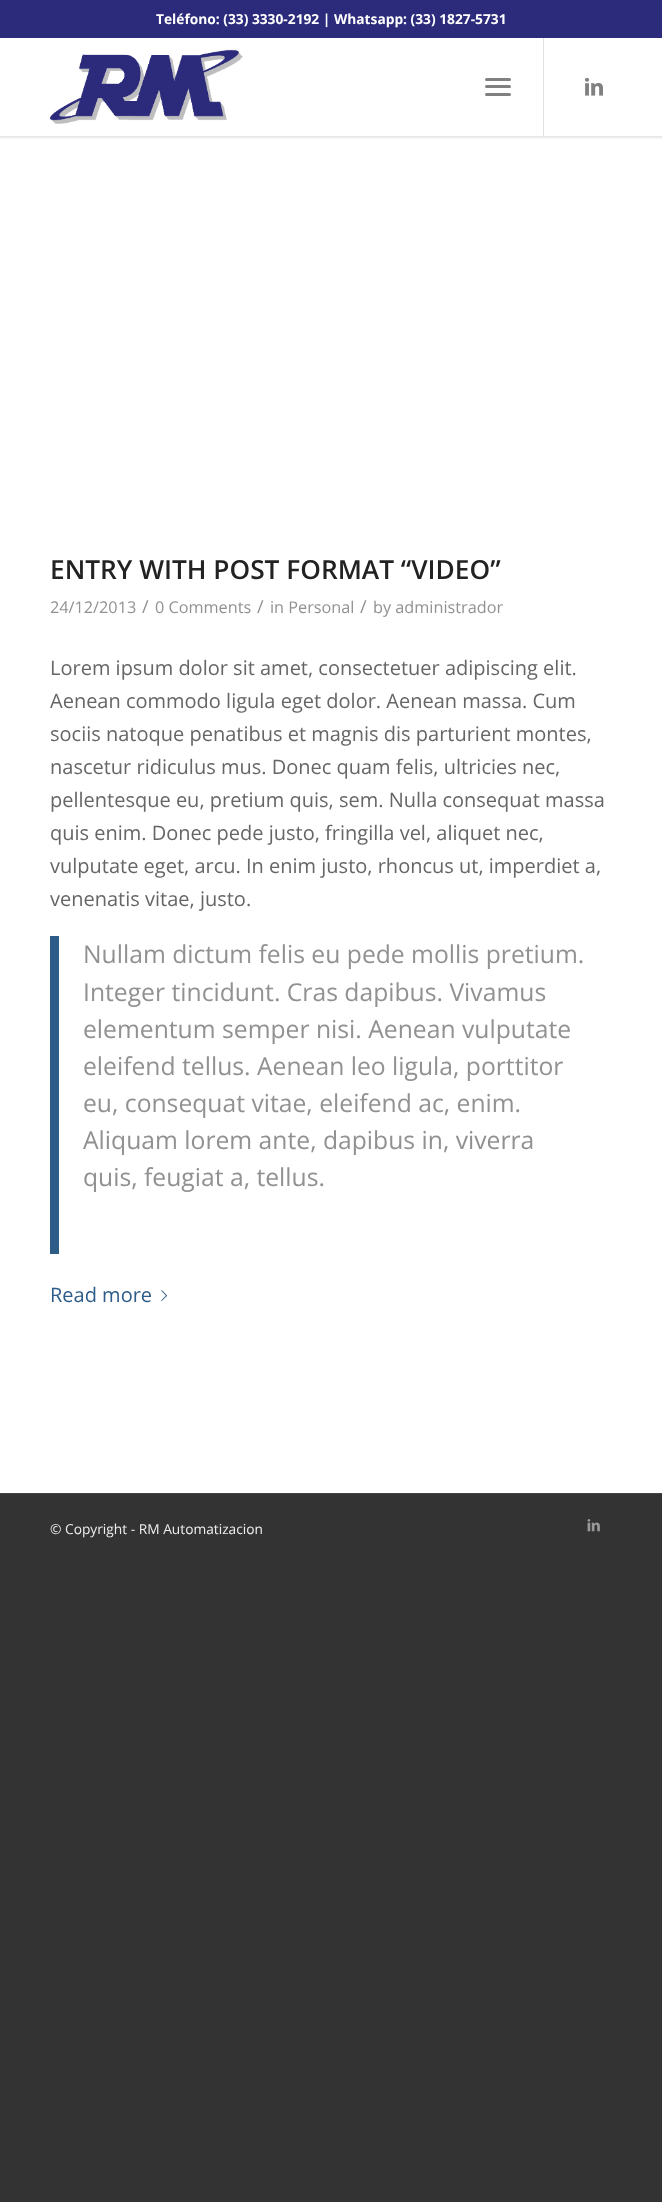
async function draw(canvas) {
  canvas.width = 662
  canvas.height = 2202
  const ctx = canvas.getContext('2d')
  ctx.miterLimit = 4
  ctx.fontKerning = 'normal'
  async function loadImage(src) {
    const img = new Image()
    img.src = src
    await img.decode()
    return img
  }

  ctx.fillStyle = '#333'
  ctx.fillRect(0, 0, 662, 2202)
  ctx.fillStyle = '#fff'
  ctx.fillRect(0, 38, 662, 1455)
  ctx.save()
  ctx.beginPath()
  ctx.rect(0, 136, 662, 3)
  ctx.clip()
  ctx.fillStyle = '#0000001a'
  ctx.filter = 'blur(1px)'
  ctx.beginPath()
  ctx.rect(-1, -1, 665, 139)
  ctx.fill()
  ctx.filter = 'none'
  ctx.restore()
  ctx.fillStyle = '#e1e1e1'
  ctx.fillRect(543, 36, 1, 100)
  ctx.fillStyle = '#2c2b7b'
  ctx.fillRect(0, 0, 662, 38)
  ctx.font = 'bold 13.75px Open Sans'
  ctx.fillStyle = '#fff'
  ctx.fillText('Teléfono: (33) 3330-2192 | Whatsapp: (33) 1827-5731', 156, 24)
  ctx.drawImage(await loadImage('image0.png'), 50, 49, 193, 75)
  ctx.fillStyle = '#808080'
  ctx.beginPath()
  ctx.roundRect(485, 85, 26, 3, 1.5)
  ctx.fill()
  ctx.beginPath()
  ctx.roundRect(485, 78, 26, 3, 1.5)
  ctx.fill()
  ctx.beginPath()
  ctx.roundRect(485, 93, 26, 3, 1.5)
  ctx.fill()
  ctx.drawImage(await loadImage('image1.png'), 585, 77, 18, 19)
  ctx.font = '600 26.25px Open Sans'
  ctx.fillStyle = '#222'
  ctx.fillText('ENTRY WITH POST FORMAT “VIDEO”', 50, 579)
  ctx.font = '16.25px Open Sans'
  ctx.fillStyle = '#919191'
  ctx.fillText('24/12/2013', 50, 613)
  ctx.font = '18px Open Sans'
  ctx.fillText('/', 142, 613)
  ctx.font = '16.25px Open Sans'
  ctx.fillText('0 Comments', 155, 613)
  ctx.font = '18px Open Sans'
  ctx.fillText('/', 257, 613)
  ctx.font = '16.25px Open Sans'
  ctx.fillText('in Personal', 270, 613)
  ctx.font = '18px Open Sans'
  ctx.fillText('/', 360, 613)
  ctx.font = '16.25px Open Sans'
  ctx.fillText('by administrador', 373, 613)
  ctx.font = '20px Open Sans'
  ctx.fillStyle = '#666'
  ctx.fillText('Lorem ipsum dolor sit amet, consectetuer adipiscing elit.', 50, 675)
  ctx.fillText('Aenean commodo ligula eget dolor. Aenean massa. Cum', 50, 708)
  ctx.fillText('sociis natoque penatibus et magnis dis parturient montes,', 50, 741)
  ctx.fillText('nascetur ridiculus mus. Donec quam felis, ultricies nec,', 50, 774)
  ctx.fillText('pellentesque eu, pretium quis, sem. Nulla consequat massa', 50, 807)
  ctx.fillText('quis enim. Donec pede justo, fringilla vel, aliquet nec,', 50, 840)
  ctx.fillText('vulputate eget, arcu. In enim justo, rhoncus ut, imperdiet a,', 50, 873)
  ctx.fillText('venenatis vitae, justo.', 50, 906)
  ctx.fillStyle = '#2d5c88'
  ctx.fillRect(50, 936, 9, 318)
  ctx.font = '24.7px Open Sans'
  ctx.fillStyle = '#919191'
  ctx.fillText('Nullam dictum felis eu pede mollis pretium.', 83, 963)
  ctx.fillText('Integer tincidunt. Cras dapibus. Vivamus', 83, 1001)
  ctx.fillText('elementum semper nisi. Aenean vulputate', 83, 1038)
  ctx.fillText('eleifend tellus. Aenean leo ligula, porttitor', 83, 1075)
  ctx.fillText('eu, consequat vitae, eleifend ac, enim.', 83, 1112)
  ctx.fillText('Aliquam lorem ante, dapibus in, viverra', 83, 1149)
  ctx.fillText('quis, feugiat a, tellus.', 83, 1186)
  ctx.font = '20px Open Sans'
  ctx.fillStyle = '#2d5c88'
  ctx.fillText('Read more', 50, 1302)
  ctx.drawImage(await loadImage('image2.png'), 161, 1290, 6, 11)
  ctx.fillStyle = '#444'
  ctx.fillRect(0, 1493, 662, 1)
  ctx.font = '13.75px Open Sans'
  ctx.fillStyle = '#eee'
  ctx.fillText('© Copyright - RM Automatizacion', 50, 1534)
  ctx.drawImage(await loadImage('image3.png'), 587, 1519, 13, 13)
}

draw(document.querySelector('canvas'))
